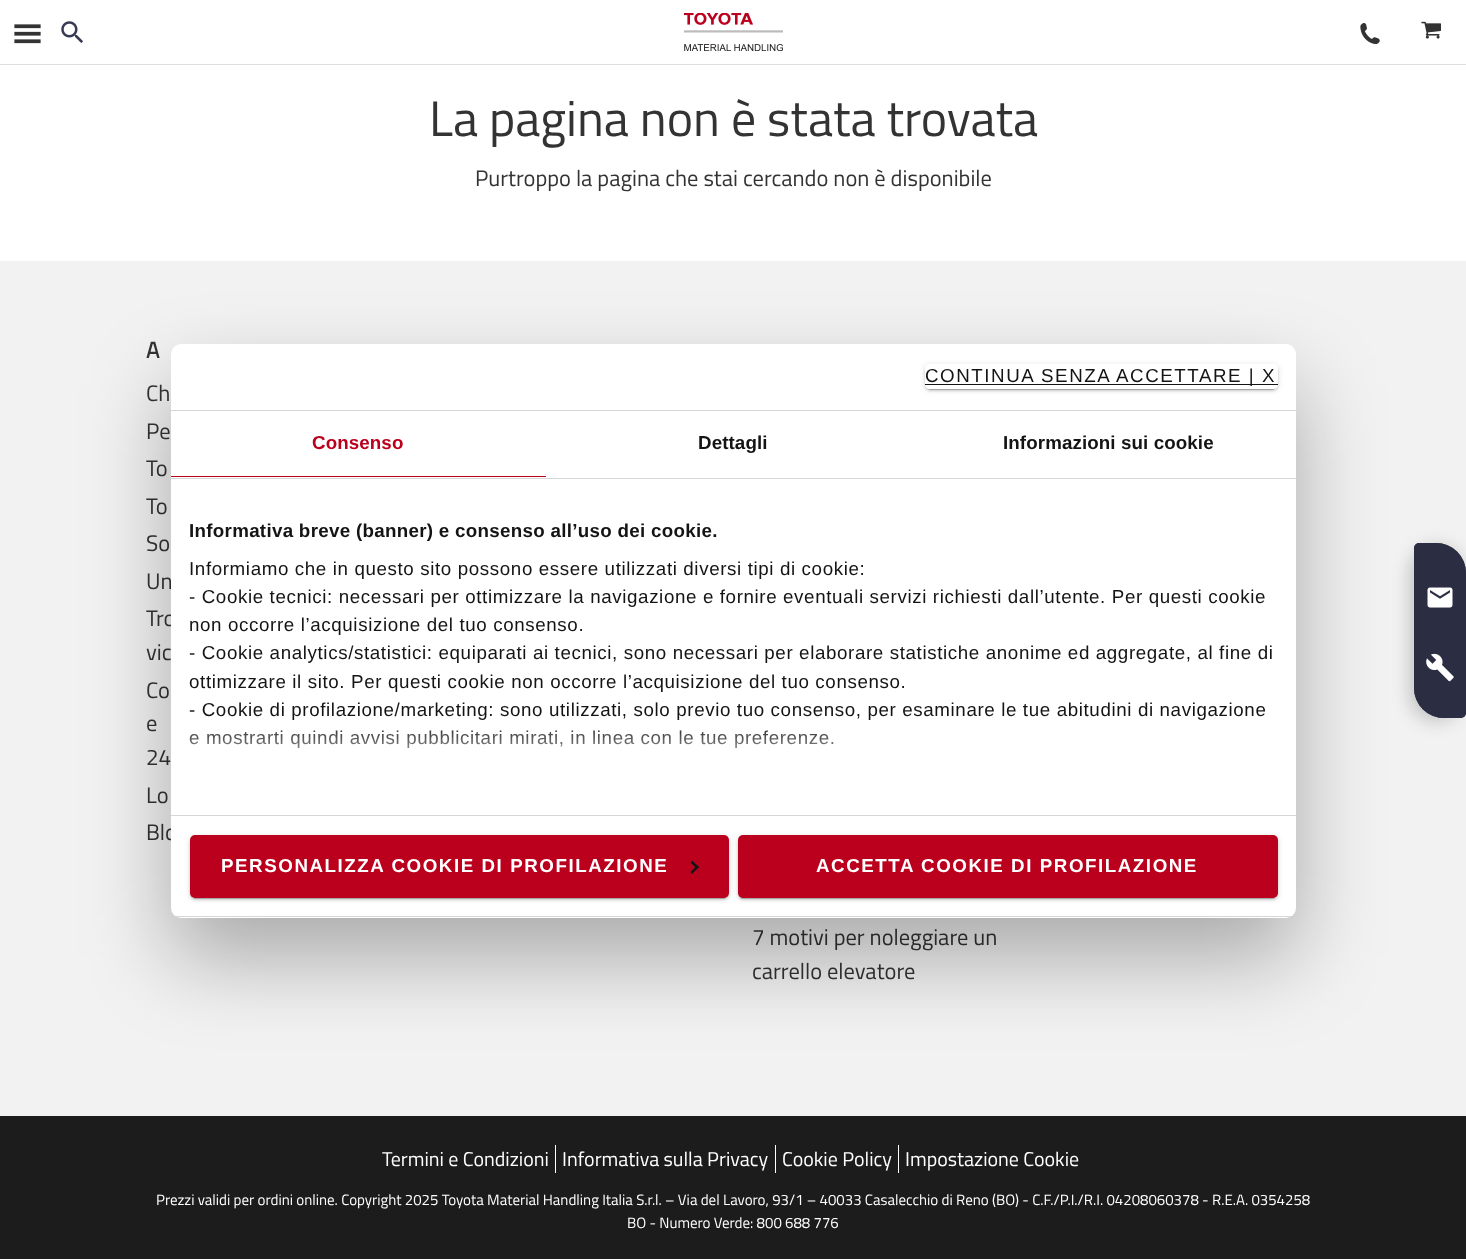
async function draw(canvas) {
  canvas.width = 1466
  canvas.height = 1259
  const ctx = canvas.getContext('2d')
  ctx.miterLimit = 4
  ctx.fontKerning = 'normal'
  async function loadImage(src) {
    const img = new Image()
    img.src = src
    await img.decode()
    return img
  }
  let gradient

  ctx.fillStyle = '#fff'
  ctx.fillRect(0, 0, 1466, 1259)
  ctx.fillStyle = '#dfdfe1'
  ctx.fillRect(0, 64, 1466, 1)
  ctx.drawImage(await loadImage('image0.png'), 14, 24, 27, 20)
  ctx.drawImage(await loadImage('image1.png'), 61, 21, 22, 22)
  ctx.drawImage(await loadImage('image2.png'), 684, 13, 99, 38)
  ctx.drawImage(await loadImage('image3.png'), 1360, 23, 20, 22)
  ctx.drawImage(await loadImage('image4.png'), 1421, 21, 20, 18)
  ctx.font = '50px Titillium'
  ctx.fillStyle = '#333'
  ctx.fillText('La pagina non è stata trovata', 429, 136)
  ctx.font = '22.5px Titillium'
  ctx.fillText('Purtroppo la pagina che stai cercando non è disponibile', 475, 186)
  ctx.fillStyle = '#f2f2f2'
  ctx.fillRect(0, 261, 1466, 855)
  ctx.font = 'bold 22.5px Titillium'
  ctx.fillStyle = '#333'
  ctx.fillText('A', 146, 358)
  ctx.font = '22.5px Titillium'
  ctx.fillText('Ch', 146, 401)
  ctx.fillText('Pe', 146, 439)
  ctx.fillText('To', 146, 476)
  ctx.fillText('To', 146, 514)
  ctx.fillText('So', 146, 551)
  ctx.fillText('Un', 146, 589)
  ctx.fillText('Tro', 146, 626)
  ctx.fillText('vic', 146, 660)
  ctx.fillText('Co', 146, 698)
  ctx.fillText('e', 146, 731)
  ctx.fillText('24', 146, 765)
  ctx.fillText('Lo', 146, 803)
  ctx.fillText('Blo', 146, 840)
  ctx.fillText('7 motivi per noleggiare un', 752, 945)
  ctx.fillText('carrello elevatore', 752, 979)
  ctx.fillStyle = '#1c1c1c'
  ctx.fillRect(0, 1116, 1466, 143)
  ctx.font = '20px Titillium'
  ctx.fillStyle = '#fff'
  ctx.fillText('Termini e Condizioni', 382, 1166)
  ctx.fillRect(555, 1145, 1, 28)
  ctx.fillText('Informativa sulla Privacy', 562, 1166)
  ctx.fillRect(775, 1145, 1, 28)
  ctx.fillText('Cookie Policy', 782, 1166)
  ctx.fillRect(898, 1145, 1, 28)
  ctx.fillText('Impostazione Cookie', 905, 1166)
  ctx.font = '15px Titillium'
  ctx.fillText('Prezzi validi per ordini online. Copyright 2025 Toyota Material Handling Italia S.r.l. – Via del Lavoro, 93/1 – 40033 Casalecchio di Reno (BO) - C.F./P.I./R.I. 04208060378 - R.E.A. 0354258', 156, 1205)
  ctx.fillText('BO - Numero Verde: 800 688 776', 627, 1228)
  ctx.fillStyle = '#00000033'
  ctx.filter = 'blur(9px)'
  ctx.beginPath()
  ctx.roundRect(1410, 546, 53, 175, 30)
  ctx.fill()
  ctx.filter = 'none'
  ctx.fillStyle = '#2b2d42'
  ctx.beginPath()
  ctx.roundRect(1414, 543, 52, 175, [5, 30, 5, 30])
  ctx.fill()
  ctx.save()
  ctx.beginPath()
  ctx.roundRect(1414, 543, 52, 175, [5, 30, 5, 30])
  ctx.clip()
  ctx.beginPath()
  ctx.roundRect(1414, 543, 52, 90, [5, 0, 0, 0])
  ctx.fill()
  ctx.beginPath()
  ctx.roundRect(1414, 633, 52, 85, [0, 0, 5, 0])
  ctx.fill()
  ctx.restore()
  ctx.fillStyle = '#0000004d'
  ctx.filter = 'blur(42.5px)'
  ctx.beginPath()
  ctx.roundRect(171, 384, 1125, 574, 10)
  ctx.fill()
  ctx.filter = 'none'
  ctx.fillStyle = '#fff'
  ctx.beginPath()
  ctx.roundRect(171, 344, 1125, 574, 10)
  ctx.fill()
  ctx.fillStyle = '#d6d6d6'
  ctx.fillRect(171, 410, 1125, 1)
  ctx.save()
  ctx.beginPath()
  ctx.moveTo(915, 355)
  ctx.lineTo(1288, 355)
  ctx.lineTo(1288, 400)
  ctx.lineTo(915, 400)
  ctx.closePath()
  ctx.moveTo(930, 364)
  ctx.lineTo(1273, 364)
  ctx.bezierCurveTo(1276, 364, 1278, 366, 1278, 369)
  ctx.lineTo(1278, 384)
  ctx.bezierCurveTo(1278, 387, 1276, 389, 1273, 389)
  ctx.lineTo(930, 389)
  ctx.bezierCurveTo(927, 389, 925, 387, 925, 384)
  ctx.lineTo(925, 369)
  ctx.bezierCurveTo(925, 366, 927, 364, 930, 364)
  ctx.closePath()
  ctx.clip('evenodd')
  ctx.fillStyle = '#0000001f'
  ctx.filter = 'blur(3px)'
  ctx.beginPath()
  ctx.roundRect(925, 365, 353, 25, 5)
  ctx.fill()
  ctx.filter = 'none'
  ctx.restore()
  ctx.save()
  ctx.beginPath()
  ctx.moveTo(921, 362)
  ctx.lineTo(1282, 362)
  ctx.lineTo(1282, 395)
  ctx.lineTo(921, 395)
  ctx.closePath()
  ctx.moveTo(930, 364)
  ctx.lineTo(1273, 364)
  ctx.bezierCurveTo(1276, 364, 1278, 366, 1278, 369)
  ctx.lineTo(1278, 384)
  ctx.bezierCurveTo(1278, 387, 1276, 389, 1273, 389)
  ctx.lineTo(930, 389)
  ctx.bezierCurveTo(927, 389, 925, 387, 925, 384)
  ctx.lineTo(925, 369)
  ctx.bezierCurveTo(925, 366, 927, 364, 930, 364)
  ctx.closePath()
  ctx.clip('evenodd')
  ctx.fillStyle = '#00000024'
  ctx.filter = 'blur(1px)'
  ctx.beginPath()
  ctx.roundRect(925, 366, 353, 25, 5)
  ctx.fill()
  ctx.filter = 'none'
  ctx.restore()
  ctx.save()
  ctx.beginPath()
  ctx.moveTo(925, 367)
  ctx.lineTo(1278, 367)
  ctx.lineTo(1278, 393)
  ctx.lineTo(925, 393)
  ctx.closePath()
  ctx.moveTo(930, 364)
  ctx.lineTo(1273, 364)
  ctx.bezierCurveTo(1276, 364, 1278, 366, 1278, 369)
  ctx.lineTo(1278, 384)
  ctx.bezierCurveTo(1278, 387, 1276, 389, 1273, 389)
  ctx.lineTo(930, 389)
  ctx.bezierCurveTo(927, 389, 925, 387, 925, 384)
  ctx.lineTo(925, 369)
  ctx.bezierCurveTo(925, 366, 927, 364, 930, 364)
  ctx.closePath()
  ctx.clip('evenodd')
  ctx.fillStyle = '#00000033'
  ctx.filter = 'blur(0.5px)'
  ctx.beginPath()
  ctx.roundRect(928, 370, 347, 20, 2.5)
  ctx.fill()
  ctx.filter = 'none'
  ctx.restore()
  ctx.fillStyle = '#141414'
  ctx.fillRect(925, 384, 353, 1)
  ctx.letterSpacing = '1.55px'
  ctx.font = '18.75px Liberation Sans'
  ctx.fillText('CONTINUA SENZA ACCETTARE | X', 925, 382)
  ctx.fillStyle = '#d6d6d6'
  ctx.fillRect(171, 478, 1125, 1)
  ctx.fillStyle = '#bb001e'
  ctx.fillRect(171, 476, 375, 1)
  ctx.letterSpacing = '0.1px'
  ctx.font = 'bold 18.75px Liberation Sans'
  ctx.fillText('Consenso', 312, 449)
  ctx.fillStyle = '#141414'
  ctx.fillText('Dettagli', 698, 449)
  ctx.fillText('Informazioni sui cookie', 1003, 449)
  ctx.fillStyle = '#d6d6d6'
  ctx.fillRect(171, 815, 1125, 1)
  ctx.letterSpacing = '0.3px'
  ctx.fillStyle = '#141414'
  ctx.fillText('Informativa breve (banner) e consenso all’uso dei cookie.', 189, 537)
  ctx.letterSpacing = '0.62px'
  ctx.font = '18.75px Liberation Sans'
  ctx.fillText('Informiamo che in questo sito possono essere utilizzati diversi tipi di cookie:', 189, 575)
  ctx.fillText('- Cookie tecnici: necessari per ottimizzare la navigazione e fornire eventuali servizi richiesti dall’utente. Per questi cookie', 189, 603)
  ctx.fillText('non occorre l’acquisizione del tuo consenso.', 189, 631)
  ctx.fillText('- Cookie analytics/statistici: equiparati ai tecnici, sono necessari per elaborare statistiche anonime ed aggregate, al fine di', 189, 659)
  ctx.fillText('ottimizzare il sito. Per questi cookie non occorre l’acquisizione del tuo consenso.', 189, 688)
  ctx.fillText('- Cookie di profilazione/marketing: sono utilizzati, solo previo tuo consenso, per esaminare le tue abitudini di navigazione', 189, 716)
  ctx.fillText('e mostrarti quindi avvisi pubblicitari mirati, in linea con le tue preferenze.', 189, 744)
  gradient = ctx.createLinearGradient(726, 814, 726, 721)
  gradient.addColorStop(0, '#fff')
  gradient.addColorStop(0.5, '#ffffffcc')
  gradient.addColorStop(1, '#ffffff00')
  ctx.fillStyle = gradient
  ctx.fillRect(190, 730, 644, 18)
  ctx.save()
  ctx.beginPath()
  ctx.roundRect(171, 344, 1125, 574, 10)
  ctx.clip()
  ctx.fillStyle = '#d6d6d6'
  ctx.fillRect(171, 916, 1125, 1)
  ctx.restore()
  ctx.fillStyle = '#0000001f'
  ctx.filter = 'blur(3px)'
  ctx.beginPath()
  ctx.roundRect(190, 836, 539, 63, 5)
  ctx.fill()
  ctx.filter = 'none'
  ctx.fillStyle = '#00000024'
  ctx.filter = 'blur(1px)'
  ctx.beginPath()
  ctx.roundRect(190, 838, 539, 62, 5)
  ctx.fill()
  ctx.filter = 'none'
  ctx.fillStyle = '#00000033'
  ctx.filter = 'blur(0.5px)'
  ctx.beginPath()
  ctx.roundRect(193, 841, 533, 58, 2.5)
  ctx.fill()
  ctx.filter = 'none'
  ctx.fillStyle = '#bb001e'
  ctx.beginPath()
  ctx.roundRect(190, 835, 539, 63, 5)
  ctx.fill()
  ctx.letterSpacing = '1.55px'
  ctx.font = 'bold 18.75px Liberation Sans'
  ctx.fillStyle = '#fff'
  ctx.fillText('PERSONALIZZA COOKIE DI PROFILAZIONE', 221, 872)
  ctx.fillStyle = '#141414'
  ctx.beginPath()
  ctx.moveTo(692, 860.5)
  ctx.lineTo(699, 867)
  ctx.lineTo(697, 869)
  ctx.lineTo(690.5, 862.5)
  ctx.closePath()
  ctx.fill()
  ctx.beginPath()
  ctx.moveTo(697, 865.5)
  ctx.lineTo(699, 867)
  ctx.lineTo(692, 874)
  ctx.lineTo(690.5, 872)
  ctx.closePath()
  ctx.fill()
  ctx.fillStyle = '#0000001f'
  ctx.filter = 'blur(3px)'
  ctx.beginPath()
  ctx.roundRect(738, 836, 540, 63, 5)
  ctx.fill()
  ctx.filter = 'none'
  ctx.fillStyle = '#00000024'
  ctx.filter = 'blur(1px)'
  ctx.beginPath()
  ctx.roundRect(738, 838, 540, 62, 5)
  ctx.fill()
  ctx.filter = 'none'
  ctx.fillStyle = '#00000033'
  ctx.filter = 'blur(0.5px)'
  ctx.beginPath()
  ctx.roundRect(740, 841, 535, 58, 2.5)
  ctx.fill()
  ctx.filter = 'none'
  ctx.fillStyle = '#bb001e'
  ctx.beginPath()
  ctx.roundRect(738, 835, 540, 63, 5)
  ctx.fill()
  ctx.fillStyle = '#fff'
  ctx.fillText('ACCETTA COOKIE DI PROFILAZIONE', 816, 872)
  ctx.drawImage(await loadImage('image5.png'), 1427, 587, 26, 21)
  ctx.drawImage(await loadImage('image6.png'), 1426, 653, 28, 29)
}

draw(document.querySelector('canvas'))
